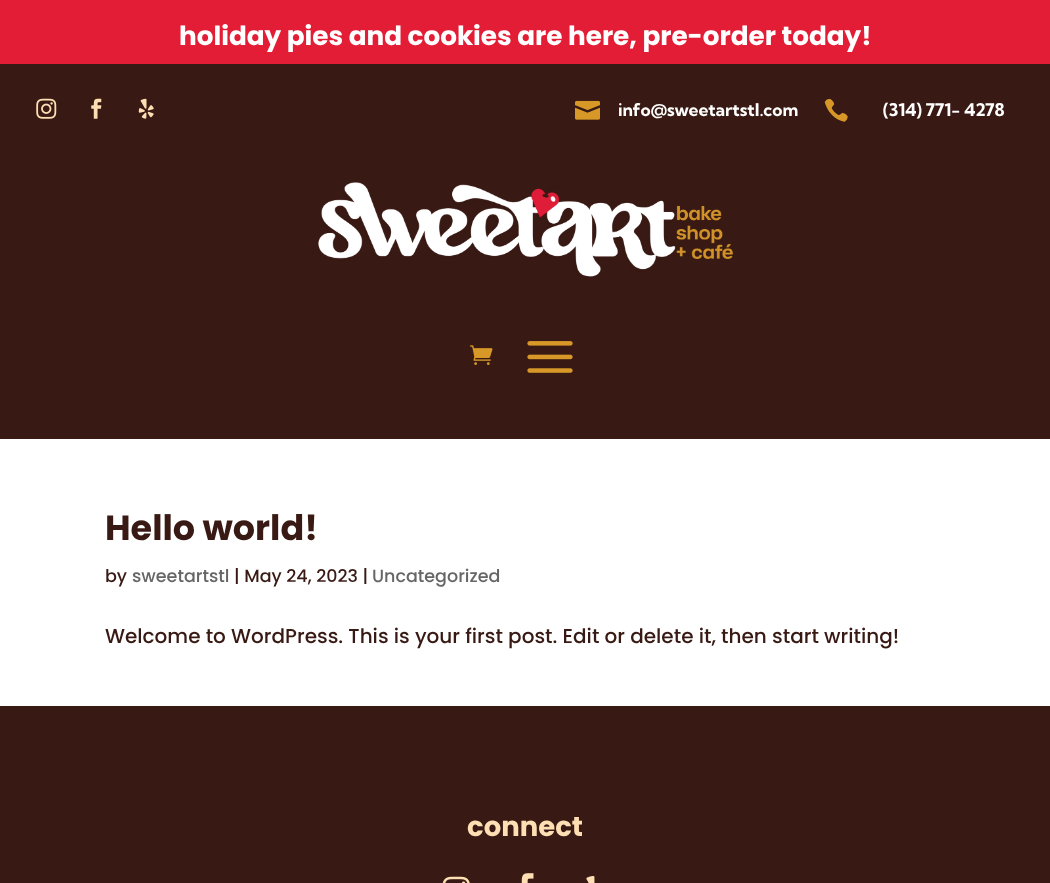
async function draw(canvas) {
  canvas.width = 1050
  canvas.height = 883
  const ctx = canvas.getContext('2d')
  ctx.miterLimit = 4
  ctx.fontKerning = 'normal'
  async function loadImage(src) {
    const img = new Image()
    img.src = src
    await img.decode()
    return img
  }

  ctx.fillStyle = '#fff'
  ctx.fillRect(0, 0, 1050, 883)
  ctx.fillStyle = '#e41d36'
  ctx.fillRect(0, 0, 1050, 64)
  ctx.font = 'bold 26.25px Poppins'
  ctx.fillStyle = '#fff'
  ctx.fillText('holiday pies and cookies are here, pre-order today!', 179, 45)
  ctx.fillStyle = '#381913'
  ctx.fillRect(0, 64, 1050, 375)
  ctx.drawImage(await loadImage('image0.png'), 36, 98, 21, 21)
  ctx.drawImage(await loadImage('image1.png'), 91, 98, 11, 21)
  ctx.drawImage(await loadImage('image2.png'), 138, 98, 16, 21)
  ctx.drawImage(await loadImage('image3.png'), 575, 100, 25, 20)
  ctx.font = 'bold 17.5px Kumbh Sans'
  ctx.fillStyle = '#fff'
  ctx.fillText('info@sweetartstl.com', 618, 116)
  ctx.drawImage(await loadImage('image4.png'), 824, 98, 24, 24)
  ctx.fillText('(314) 771- 4278', 883, 116)
  ctx.drawImage(await loadImage('image5.png'), 318, 182, 415, 95)
  ctx.drawImage(await loadImage('image6.png'), 470, 345, 23, 20)
  ctx.drawImage(await loadImage('image7.png'), 527, 341, 46, 32)
  ctx.font = 'bold 35px Poppins'
  ctx.fillStyle = '#381913'
  ctx.fillText('Hello world!', 105, 540)
  ctx.font = '500 17.5px Poppins'
  ctx.fillText('by', 105, 582)
  ctx.fillStyle = '#666'
  ctx.fillText('sweetartstl', 132, 582)
  ctx.fillStyle = '#381913'
  ctx.fillText('| May 24, 2023 |', 234, 582)
  ctx.fillStyle = '#666'
  ctx.fillText('Uncategorized', 372, 582)
  ctx.font = '500 20px Poppins'
  ctx.fillStyle = '#381913'
  ctx.fillText('Welcome to WordPress. This is your first post. Edit or delete it, then start writing!', 105, 643)
  ctx.fillRect(0, 706, 1050, 177)
  ctx.font = 'bold 27.5px Poppins'
  ctx.fillStyle = '#fedfb3'
  ctx.fillText('connect', 467, 836)
  ctx.drawImage(await loadImage('image8.png'), 442, 876, 28, 7)
  ctx.drawImage(await loadImage('image9.png'), 521, 873, 13, 10)
  ctx.drawImage(await loadImage('image10.png'), 586, 875, 9, 8)
}

draw(document.querySelector('canvas'))
